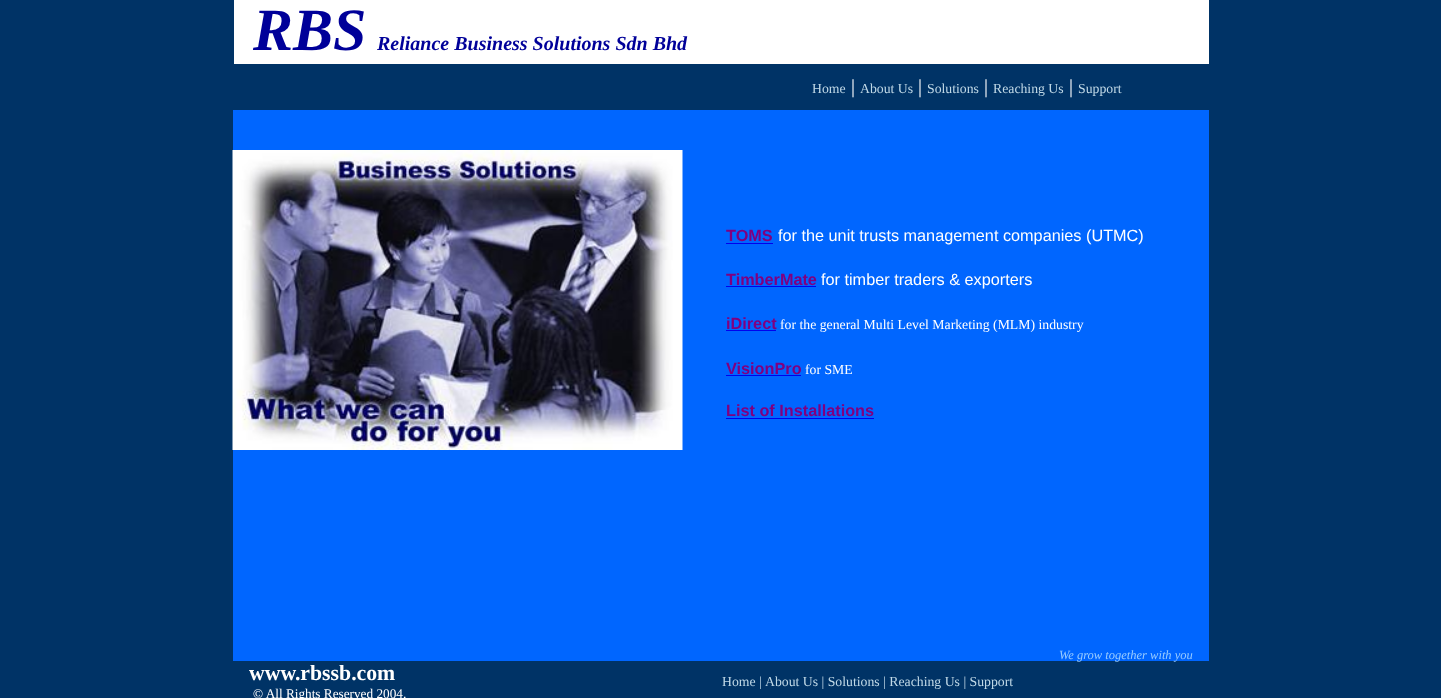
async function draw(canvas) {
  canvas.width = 1441
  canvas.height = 698
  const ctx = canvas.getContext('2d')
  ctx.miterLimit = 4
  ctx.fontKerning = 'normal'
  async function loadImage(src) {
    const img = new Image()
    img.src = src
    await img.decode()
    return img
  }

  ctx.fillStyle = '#036'
  ctx.fillRect(0, 0, 1441, 698)
  ctx.fillStyle = '#fff'
  ctx.fillRect(234, 0, 975, 64)
  ctx.font = 'italic bold 60px Liberation Serif'
  ctx.fillStyle = '#009'
  ctx.fillText('RBS', 253, 50)
  ctx.font = 'italic bold 20px Liberation Serif'
  ctx.fillText('Reliance Business Solutions Sdn Bhd', 377, 50)
  ctx.font = '13.75px Liberation Serif'
  ctx.fillStyle = '#c0d9e7'
  ctx.fillText('Home', 812, 93)
  ctx.font = '20px Liberation Serif'
  ctx.fillStyle = '#fff'
  ctx.fillText('|', 851, 93)
  ctx.font = '13.75px Liberation Serif'
  ctx.fillStyle = '#c0d9e7'
  ctx.fillText('About Us', 860, 93)
  ctx.font = '20px Liberation Serif'
  ctx.fillStyle = '#fff'
  ctx.fillText('|', 918, 93)
  ctx.font = '13.75px Liberation Serif'
  ctx.fillStyle = '#c0d9e7'
  ctx.fillText('Solutions', 927, 93)
  ctx.font = '20px Liberation Serif'
  ctx.fillStyle = '#fff'
  ctx.fillText('|', 984, 93)
  ctx.font = '13.75px Liberation Serif'
  ctx.fillStyle = '#c0d9e7'
  ctx.fillText('Reaching Us', 993, 93)
  ctx.font = '20px Liberation Serif'
  ctx.fillStyle = '#fff'
  ctx.fillText('|', 1069, 93)
  ctx.font = '13.75px Liberation Serif'
  ctx.fillStyle = '#c0d9e7'
  ctx.fillText('Support', 1078, 93)
  ctx.fillStyle = '#06f'
  ctx.fillRect(233, 110, 976, 551)
  ctx.drawImage(await loadImage('image0.png'), 232, 150, 451, 300)
  ctx.font = 'bold 16.25px Liberation Sans'
  ctx.fillStyle = '#800080'
  ctx.fillText('TOMS', 726, 241)
  ctx.fillStyle = '#00e'
  ctx.fillRect(726, 243, 47, 1)
  ctx.font = '16.25px Liberation Sans'
  ctx.fillStyle = '#fff'
  ctx.fillText('for the unit trusts management companies (UTMC)', 778, 241)
  ctx.font = 'bold 16.25px Liberation Sans'
  ctx.fillStyle = '#800080'
  ctx.fillText('TimberMate', 726, 285)
  ctx.fillStyle = '#00e'
  ctx.fillRect(726, 286, 90, 1)
  ctx.font = '16.25px Liberation Sans'
  ctx.fillStyle = '#fff'
  ctx.fillText('for timber traders & exporters', 821, 285)
  ctx.font = 'bold 16.25px Liberation Sans'
  ctx.fillStyle = '#800080'
  ctx.fillText('iDirect', 726, 329)
  ctx.fillStyle = '#00e'
  ctx.fillRect(726, 330, 50, 1)
  ctx.font = '13.75px Liberation Serif'
  ctx.fillStyle = '#fff'
  ctx.fillText('for the general Multi Level Marketing (MLM) industry', 780, 329)
  ctx.font = 'bold 16.25px Liberation Sans'
  ctx.fillStyle = '#800080'
  ctx.fillText('VisionPro', 726, 374)
  ctx.fillStyle = '#00e'
  ctx.fillRect(726, 375, 75, 1)
  ctx.font = '13.75px Liberation Serif'
  ctx.fillStyle = '#fff'
  ctx.fillText('for SME', 805, 374)
  ctx.font = 'bold 16.25px Liberation Sans'
  ctx.fillStyle = '#800080'
  ctx.fillText('List of Installations', 726, 416)
  ctx.fillStyle = '#00e'
  ctx.fillRect(726, 418, 148, 1)
  ctx.font = 'italic 12.5px Liberation Serif'
  ctx.fillStyle = '#9cf'
  ctx.fillText('We grow together with you', 1059, 659)
  ctx.font = 'bold 21.75px Liberation Serif'
  ctx.fillStyle = '#fff'
  ctx.fillText('www.rbssb.com', 249, 680)
  ctx.font = '13.25px Liberation Serif'
  ctx.fillText('© All Rights Reserved 2004.', 253, 698)
  ctx.font = '13.75px Liberation Serif'
  ctx.fillStyle = '#c0d9e7'
  ctx.fillText('Home', 722, 686)
  ctx.fillText('|', 759, 686)
  ctx.fillText('About Us | Solutions | Reaching Us | Support', 765, 686)
}

draw(document.querySelector('canvas'))
